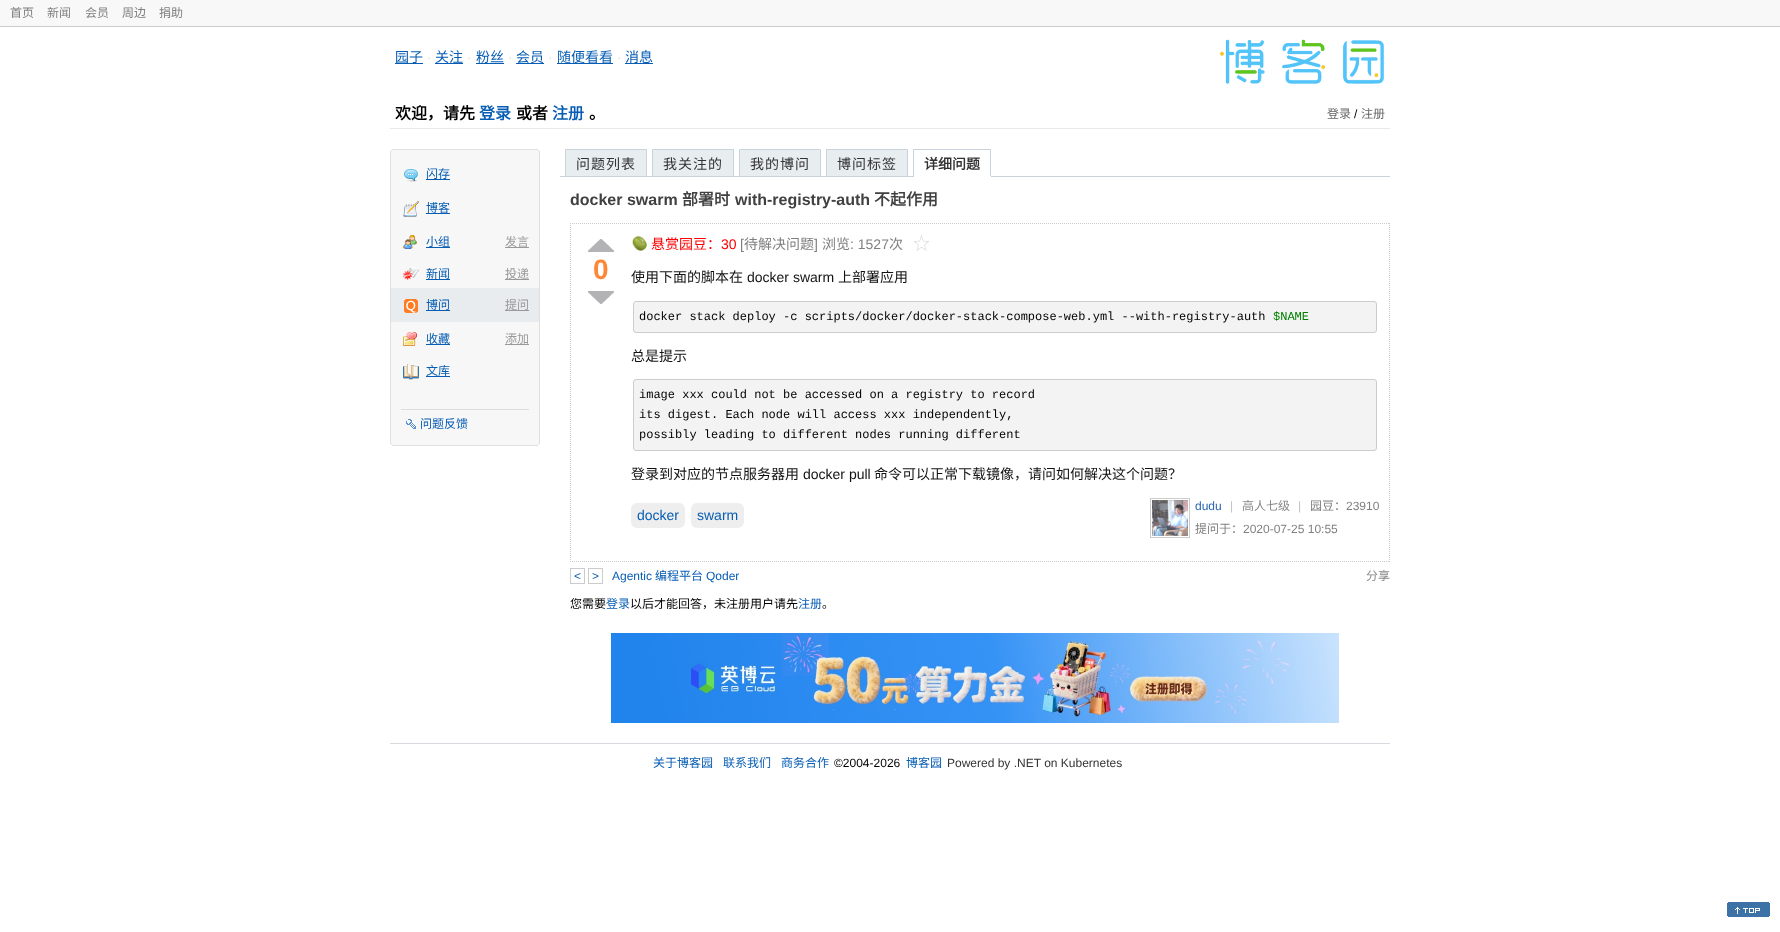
async function draw(canvas) {
  canvas.width = 1780
  canvas.height = 932
  const ctx = canvas.getContext('2d')
  ctx.miterLimit = 4
  ctx.fontKerning = 'normal'
  async function loadImage(src) {
    const img = new Image()
    img.src = src
    await img.decode()
    return img
  }

  ctx.fillStyle = '#fff'
  ctx.fillRect(0, 0, 1780, 932)
  ctx.fillStyle = '#f8f8f8'
  ctx.fillRect(0, 0, 1780, 26)
  ctx.fillStyle = '#ccc'
  ctx.fillRect(0, 26, 1780, 1)
  ctx.font = '12px Noto Sans CJK SC'
  ctx.fillStyle = '#808080'
  ctx.fillText('首页', 10, 17)
  ctx.fillText('新闻', 47, 17)
  ctx.fillText('会员', 85, 17)
  ctx.fillText('周边', 122, 17)
  ctx.fillText('捐助', 159, 17)
  ctx.fillStyle = '#e8e8e8'
  ctx.fillRect(390, 128, 1000, 1)
  ctx.fillStyle = '#075db3'
  ctx.fillRect(395, 63, 28, 1)
  ctx.font = '14px Noto Sans CJK SC'
  ctx.fillText('园子', 395, 62)
  ctx.font = '14px Liberation Sans'
  ctx.fillStyle = '#dfdfdf'
  ctx.fillText('·', 427, 62)
  ctx.fillStyle = '#075db3'
  ctx.fillRect(435, 63, 28, 1)
  ctx.font = '14px Noto Sans CJK SC'
  ctx.fillText('关注', 435, 62)
  ctx.font = '14px Liberation Sans'
  ctx.fillStyle = '#dfdfdf'
  ctx.fillText('·', 467, 62)
  ctx.fillStyle = '#075db3'
  ctx.fillRect(476, 63, 28, 1)
  ctx.font = '14px Noto Sans CJK SC'
  ctx.fillText('粉丝', 476, 62)
  ctx.font = '14px Liberation Sans'
  ctx.fillStyle = '#dfdfdf'
  ctx.fillText('·', 508, 62)
  ctx.fillStyle = '#075db3'
  ctx.fillRect(516, 63, 28, 1)
  ctx.font = '14px Noto Sans CJK SC'
  ctx.fillText('会员', 516, 62)
  ctx.font = '14px Liberation Sans'
  ctx.fillStyle = '#dfdfdf'
  ctx.fillText('·', 548, 62)
  ctx.fillStyle = '#075db3'
  ctx.fillRect(557, 63, 56, 1)
  ctx.font = '14px Noto Sans CJK SC'
  ctx.fillText('随便看看', 557, 62)
  ctx.font = '14px Liberation Sans'
  ctx.fillStyle = '#dfdfdf'
  ctx.fillText('·', 617, 62)
  ctx.fillStyle = '#075db3'
  ctx.fillRect(625, 63, 28, 1)
  ctx.font = '14px Noto Sans CJK SC'
  ctx.fillText('消息', 625, 62)
  ctx.drawImage(await loadImage('image0.png'), 1220, 39, 165, 45)
  ctx.font = 'bold 16px Noto Sans CJK SC'
  ctx.fillStyle = '#000'
  ctx.fillText('欢迎，请先', 395, 119)
  ctx.fillStyle = '#075db3'
  ctx.fillText('登录', 479, 119)
  ctx.fillStyle = '#000'
  ctx.fillText('或者', 516, 119)
  ctx.fillStyle = '#075db3'
  ctx.fillText('注册', 552, 119)
  ctx.fillStyle = '#000'
  ctx.fillText('。', 589, 119)
  ctx.font = '12px Noto Sans CJK SC'
  ctx.fillStyle = '#666'
  ctx.fillText('登录', 1327, 118)
  ctx.font = '12px Liberation Sans'
  ctx.fillStyle = '#000'
  ctx.fillText('/', 1354, 118)
  ctx.font = '12px Noto Sans CJK SC'
  ctx.fillStyle = '#666'
  ctx.fillText('注册', 1361, 118)
  ctx.fillStyle = '#dfe1e1'
  ctx.fillRect(392, 149, 146, 1)
  ctx.fillStyle = '#f7f7f7'
  ctx.fillRect(391, 150, 148, 1)
  ctx.fillStyle = '#dfe1e1'
  ctx.fillRect(538, 150, 1, 1)
  ctx.fillRect(391, 150, 1, 1)
  ctx.fillStyle = '#f7f7f7'
  ctx.fillRect(390, 151, 150, 1)
  ctx.fillStyle = '#dbdee2'
  ctx.fillRect(539, 151, 1, 1)
  ctx.fillStyle = '#dfe1e1'
  ctx.fillRect(390, 151, 1, 292)
  ctx.fillStyle = '#f7f7f7'
  ctx.fillRect(391, 152, 148, 291)
  ctx.fillStyle = '#dfe1e1'
  ctx.fillRect(539, 152, 1, 291)
  ctx.drawImage(await loadImage('image1.png'), 404, 169, 14, 13)
  ctx.fillStyle = '#075db3'
  ctx.fillText('闪存', 426, 178)
  ctx.fillRect(426, 179, 24, 1)
  ctx.drawImage(await loadImage('image2.png'), 403, 201, 16, 16)
  ctx.fillText('博客', 426, 212)
  ctx.fillRect(426, 213, 24, 1)
  ctx.drawImage(await loadImage('image3.png'), 403, 235, 14, 14)
  ctx.fillText('小组', 426, 246)
  ctx.fillRect(426, 247, 24, 1)
  ctx.fillStyle = '#999'
  ctx.fillText('发言', 505, 246)
  ctx.fillRect(505, 247, 24, 1)
  ctx.drawImage(await loadImage('image4.png'), 403, 267, 16, 13)
  ctx.fillStyle = '#075db3'
  ctx.fillText('新闻', 426, 278)
  ctx.fillRect(426, 279, 24, 1)
  ctx.fillStyle = '#999'
  ctx.fillText('投递', 505, 278)
  ctx.fillRect(505, 279, 24, 1)
  ctx.fillStyle = '#e9ecef'
  ctx.fillRect(391, 288, 148, 34)
  ctx.drawImage(await loadImage('image5.png'), 404, 299, 14, 14)
  ctx.fillStyle = '#075db3'
  ctx.fillText('博问', 426, 309)
  ctx.fillRect(426, 310, 24, 1)
  ctx.fillStyle = '#999'
  ctx.fillText('提问', 505, 309)
  ctx.fillRect(505, 310, 24, 1)
  ctx.drawImage(await loadImage('image6.png'), 403, 332, 14, 14)
  ctx.fillStyle = '#075db3'
  ctx.fillText('收藏', 426, 343)
  ctx.fillRect(426, 344, 24, 1)
  ctx.fillStyle = '#999'
  ctx.fillText('添加', 505, 343)
  ctx.fillRect(505, 344, 24, 1)
  ctx.drawImage(await loadImage('image7.png'), 403, 364, 16, 16)
  ctx.fillStyle = '#075db3'
  ctx.fillText('文库', 426, 375)
  ctx.fillRect(426, 376, 24, 1)
  ctx.fillStyle = '#ddd'
  ctx.fillRect(401, 409, 128, 1)
  ctx.drawImage(await loadImage('image8.png'), 406, 419, 10, 10)
  ctx.fillStyle = '#075db3'
  ctx.fillText('问题反馈', 420, 428)
  ctx.fillStyle = '#f7f7f7'
  ctx.fillRect(390, 443, 150, 1)
  ctx.fillStyle = '#dbdee2'
  ctx.fillRect(539, 443, 1, 1)
  ctx.fillStyle = '#dfe1e1'
  ctx.fillRect(390, 443, 1, 1)
  ctx.fillStyle = '#f7f7f7'
  ctx.fillRect(391, 444, 148, 1)
  ctx.fillStyle = '#dfe1e1'
  ctx.fillRect(538, 444, 1, 1)
  ctx.fillRect(391, 444, 1, 1)
  ctx.fillRect(392, 445, 146, 1)
  ctx.fillStyle = '#c8d3de'
  ctx.fillRect(560, 176, 830, 1)
  ctx.fillStyle = '#e8edf0'
  ctx.beginPath()
  ctx.rect(565.5, 149.5, 81, 27)
  ctx.fill()
  ctx.strokeStyle = '#c8d3de'
  ctx.stroke()
  ctx.letterSpacing = '1px'
  ctx.font = '14px Noto Sans CJK SC'
  ctx.fillStyle = '#333'
  ctx.fillText('问题列表', 576, 169)
  ctx.fillStyle = '#e8edf0'
  ctx.beginPath()
  ctx.rect(652.5, 149.5, 81, 27)
  ctx.fill()
  ctx.stroke()
  ctx.fillStyle = '#333'
  ctx.fillText('我关注的', 663, 169)
  ctx.fillStyle = '#e8edf0'
  ctx.beginPath()
  ctx.rect(739.5, 149.5, 81, 27)
  ctx.fill()
  ctx.stroke()
  ctx.fillStyle = '#333'
  ctx.fillText('我的博问', 750, 169)
  ctx.fillStyle = '#e8edf0'
  ctx.beginPath()
  ctx.rect(826.5, 149.5, 81, 27)
  ctx.fill()
  ctx.stroke()
  ctx.fillStyle = '#333'
  ctx.fillText('博问标签', 837, 169)
  ctx.fillStyle = '#c8d3de'
  ctx.fillRect(913, 149, 78, 1)
  ctx.fillRect(990, 149, 1, 28)
  ctx.fillStyle = '#fff'
  ctx.fillRect(913, 176, 78, 1)
  ctx.fillStyle = '#c8d3de'
  ctx.fillRect(913, 149, 1, 28)
  ctx.letterSpacing = '0px'
  ctx.font = 'bold 14px Noto Sans CJK SC'
  ctx.fillStyle = '#333'
  ctx.fillText('详细问题', 924, 169)
  ctx.font = 'bold 16px Liberation Sans'
  ctx.fillStyle = '#404040'
  ctx.fillText('docker swarm', 570, 205)
  ctx.font = 'bold 16px Noto Sans CJK SC'
  ctx.fillText('部署时', 682, 205)
  ctx.font = 'bold 16px Liberation Sans'
  ctx.fillText('with-registry-auth', 735, 205)
  ctx.font = 'bold 16px Noto Sans CJK SC'
  ctx.fillText('不起作用', 874, 205)
  ctx.beginPath()
  ctx.moveTo(570, 223.5)
  ctx.lineTo(1390, 223.5)
  ctx.strokeStyle = '#ccc'
  ctx.setLineDash([1, 1])
  ctx.stroke()
  ctx.beginPath()
  ctx.moveTo(1389.5, 223)
  ctx.lineTo(1389.5, 562)
  ctx.stroke()
  ctx.beginPath()
  ctx.moveTo(570, 561.5)
  ctx.lineTo(1390, 561.5)
  ctx.stroke()
  ctx.beginPath()
  ctx.moveTo(570.5, 223)
  ctx.lineTo(570.5, 562)
  ctx.stroke()
  ctx.drawImage(await loadImage('image9.png'), 588, 239, 26, 13)
  ctx.font = 'bold 28px Liberation Sans'
  ctx.fillStyle = '#ff8635'
  ctx.fillText('0', 593, 279)
  ctx.drawImage(await loadImage('image10.png'), 588, 291, 26, 13)
  ctx.drawImage(await loadImage('image11.png'), 632, 235, 15, 16)
  ctx.font = '14px Noto Sans CJK SC'
  ctx.fillStyle = '#f00'
  ctx.fillText('悬赏园豆：', 651, 249)
  ctx.font = '14px Liberation Sans'
  ctx.fillText('30', 721, 249)
  ctx.fillStyle = '#808080'
  ctx.fillText('[', 740, 249)
  ctx.font = '14px Noto Sans CJK SC'
  ctx.fillText('待解决问题', 744, 249)
  ctx.font = '14px Liberation Sans'
  ctx.fillText(']', 814, 249)
  ctx.font = '14px Noto Sans CJK SC'
  ctx.fillText('浏览', 822, 249)
  ctx.font = '14px Liberation Sans'
  ctx.fillText(': 1527', 850, 249)
  ctx.font = '14px Noto Sans CJK SC'
  ctx.fillText('次', 889, 249)
  ctx.drawImage(await loadImage('image12.png'), 914, 235, 15, 16)
  ctx.fillStyle = '#111'
  ctx.fillText('使用下面的脚本在', 631, 282)
  ctx.font = '14px Liberation Sans'
  ctx.fillText('docker swarm', 747, 282)
  ctx.font = '14px Noto Sans CJK SC'
  ctx.fillText('上部署应用', 838, 282)
  ctx.fillStyle = '#f3f3f3'
  ctx.beginPath()
  ctx.roundRect(633.5, 301.5, 743, 31, 2.5)
  ctx.fill()
  ctx.setLineDash([])
  ctx.stroke()
  ctx.font = '12px Liberation Mono'
  ctx.fillStyle = '#000'
  ctx.fillText('docker stack deploy -c scripts/docker/docker-stack-compose-web.yml --with-registry-auth', 639, 320)
  ctx.fillStyle = '#008000'
  ctx.fillText('$NAME', 1273, 320)
  ctx.font = '14px Noto Sans CJK SC'
  ctx.fillStyle = '#111'
  ctx.fillText('总是提示', 631, 361)
  ctx.fillStyle = '#f3f3f3'
  ctx.beginPath()
  ctx.roundRect(633.5, 379.5, 743, 71, 2.5)
  ctx.fill()
  ctx.stroke()
  ctx.font = '12px Liberation Mono'
  ctx.fillStyle = '#000'
  ctx.fillText('image xxx could not be accessed on a registry to record', 639, 398)
  ctx.fillText('its digest. Each node will access xxx independently,', 639, 418)
  ctx.fillText('possibly leading to different nodes running different', 639, 438)
  ctx.font = '14px Noto Sans CJK SC'
  ctx.fillStyle = '#111'
  ctx.fillText('登录到对应的节点服务器用', 631, 479)
  ctx.font = '14px Liberation Sans'
  ctx.fillText('docker pull', 803, 479)
  ctx.font = '14px Noto Sans CJK SC'
  ctx.fillText('命令可以正常下载镜像，请问如何解决这个问题？', 874, 479)
  ctx.fillStyle = '#eee'
  ctx.beginPath()
  ctx.roundRect(631, 503, 54, 25, 6)
  ctx.fill()
  ctx.font = '14px Liberation Sans'
  ctx.fillStyle = '#075db3'
  ctx.fillText('docker', 637, 520)
  ctx.fillStyle = '#eee'
  ctx.beginPath()
  ctx.roundRect(691, 503, 53, 25, 6)
  ctx.fill()
  ctx.fillStyle = '#075db3'
  ctx.fillText('swarm', 697, 520)
  ctx.strokeRect(1150.5, 498.5, 39, 39)
  ctx.drawImage(await loadImage('image13.png'), 1152, 500, 36, 36)
  ctx.font = '12px Liberation Sans'
  ctx.fillStyle = '#2965b1'
  ctx.fillText('dudu', 1195, 510)
  ctx.fillStyle = '#c1c1c1'
  ctx.fillText('|', 1230, 510)
  ctx.font = '12px Noto Sans CJK SC'
  ctx.fillStyle = '#888'
  ctx.fillText('高人七级', 1242, 510)
  ctx.font = '12px Liberation Sans'
  ctx.fillStyle = '#c1c1c1'
  ctx.fillText('|', 1298, 510)
  ctx.font = '12px Noto Sans CJK SC'
  ctx.fillStyle = '#808080'
  ctx.fillText('园豆：', 1310, 510)
  ctx.font = '12px Liberation Sans'
  ctx.fillText('23910', 1346, 510)
  ctx.font = '12px Noto Sans CJK SC'
  ctx.fillText('提问于：', 1195, 533)
  ctx.font = '12px Liberation Sans'
  ctx.fillText('2020-07-25 10:55', 1243, 533)
  ctx.strokeRect(570.5, 568.5, 14, 15)
  ctx.fillStyle = '#075db3'
  ctx.fillText('<', 574, 580)
  ctx.strokeRect(588.5, 568.5, 14, 15)
  ctx.fillText('>', 592, 580)
  ctx.fillText('Agentic', 612, 580)
  ctx.font = '12px Noto Sans CJK SC'
  ctx.fillText('编程平台', 655, 580)
  ctx.font = '12px Liberation Sans'
  ctx.fillText('Qoder', 706, 580)
  ctx.font = '12px Noto Sans CJK SC'
  ctx.fillStyle = '#888'
  ctx.fillText('分享', 1366, 580)
  ctx.fillStyle = '#000'
  ctx.fillText('您需要', 570, 608)
  ctx.fillStyle = '#075db3'
  ctx.fillText('登录', 606, 608)
  ctx.fillStyle = '#000'
  ctx.fillText('以后才能回答，未注册用户请先', 630, 608)
  ctx.fillStyle = '#075db3'
  ctx.fillText('注册', 798, 608)
  ctx.fillStyle = '#000'
  ctx.fillText('。', 822, 608)
  ctx.drawImage(await loadImage('image14.png'), 611, 633, 728, 90)
  ctx.fillStyle = '#d6d9de'
  ctx.fillRect(390, 743, 1000, 1)
  ctx.fillStyle = '#075db3'
  ctx.fillText('关于博客园', 653, 767)
  ctx.fillText('联系我们', 723, 767)
  ctx.fillText('商务合作', 781, 767)
  ctx.font = '12px Liberation Sans'
  ctx.fillStyle = '#000'
  ctx.fillText('©2004-2026', 834, 767)
  ctx.font = '12px Noto Sans CJK SC'
  ctx.fillStyle = '#075db3'
  ctx.fillText('博客园', 906, 767)
  ctx.font = '12px Liberation Sans'
  ctx.fillStyle = '#333'
  ctx.fillText('Powered by .NET on Kubernetes', 947, 767)
  ctx.drawImage(await loadImage('image15.png'), 1727, 902, 43, 15)
}

draw(document.querySelector('canvas'))
